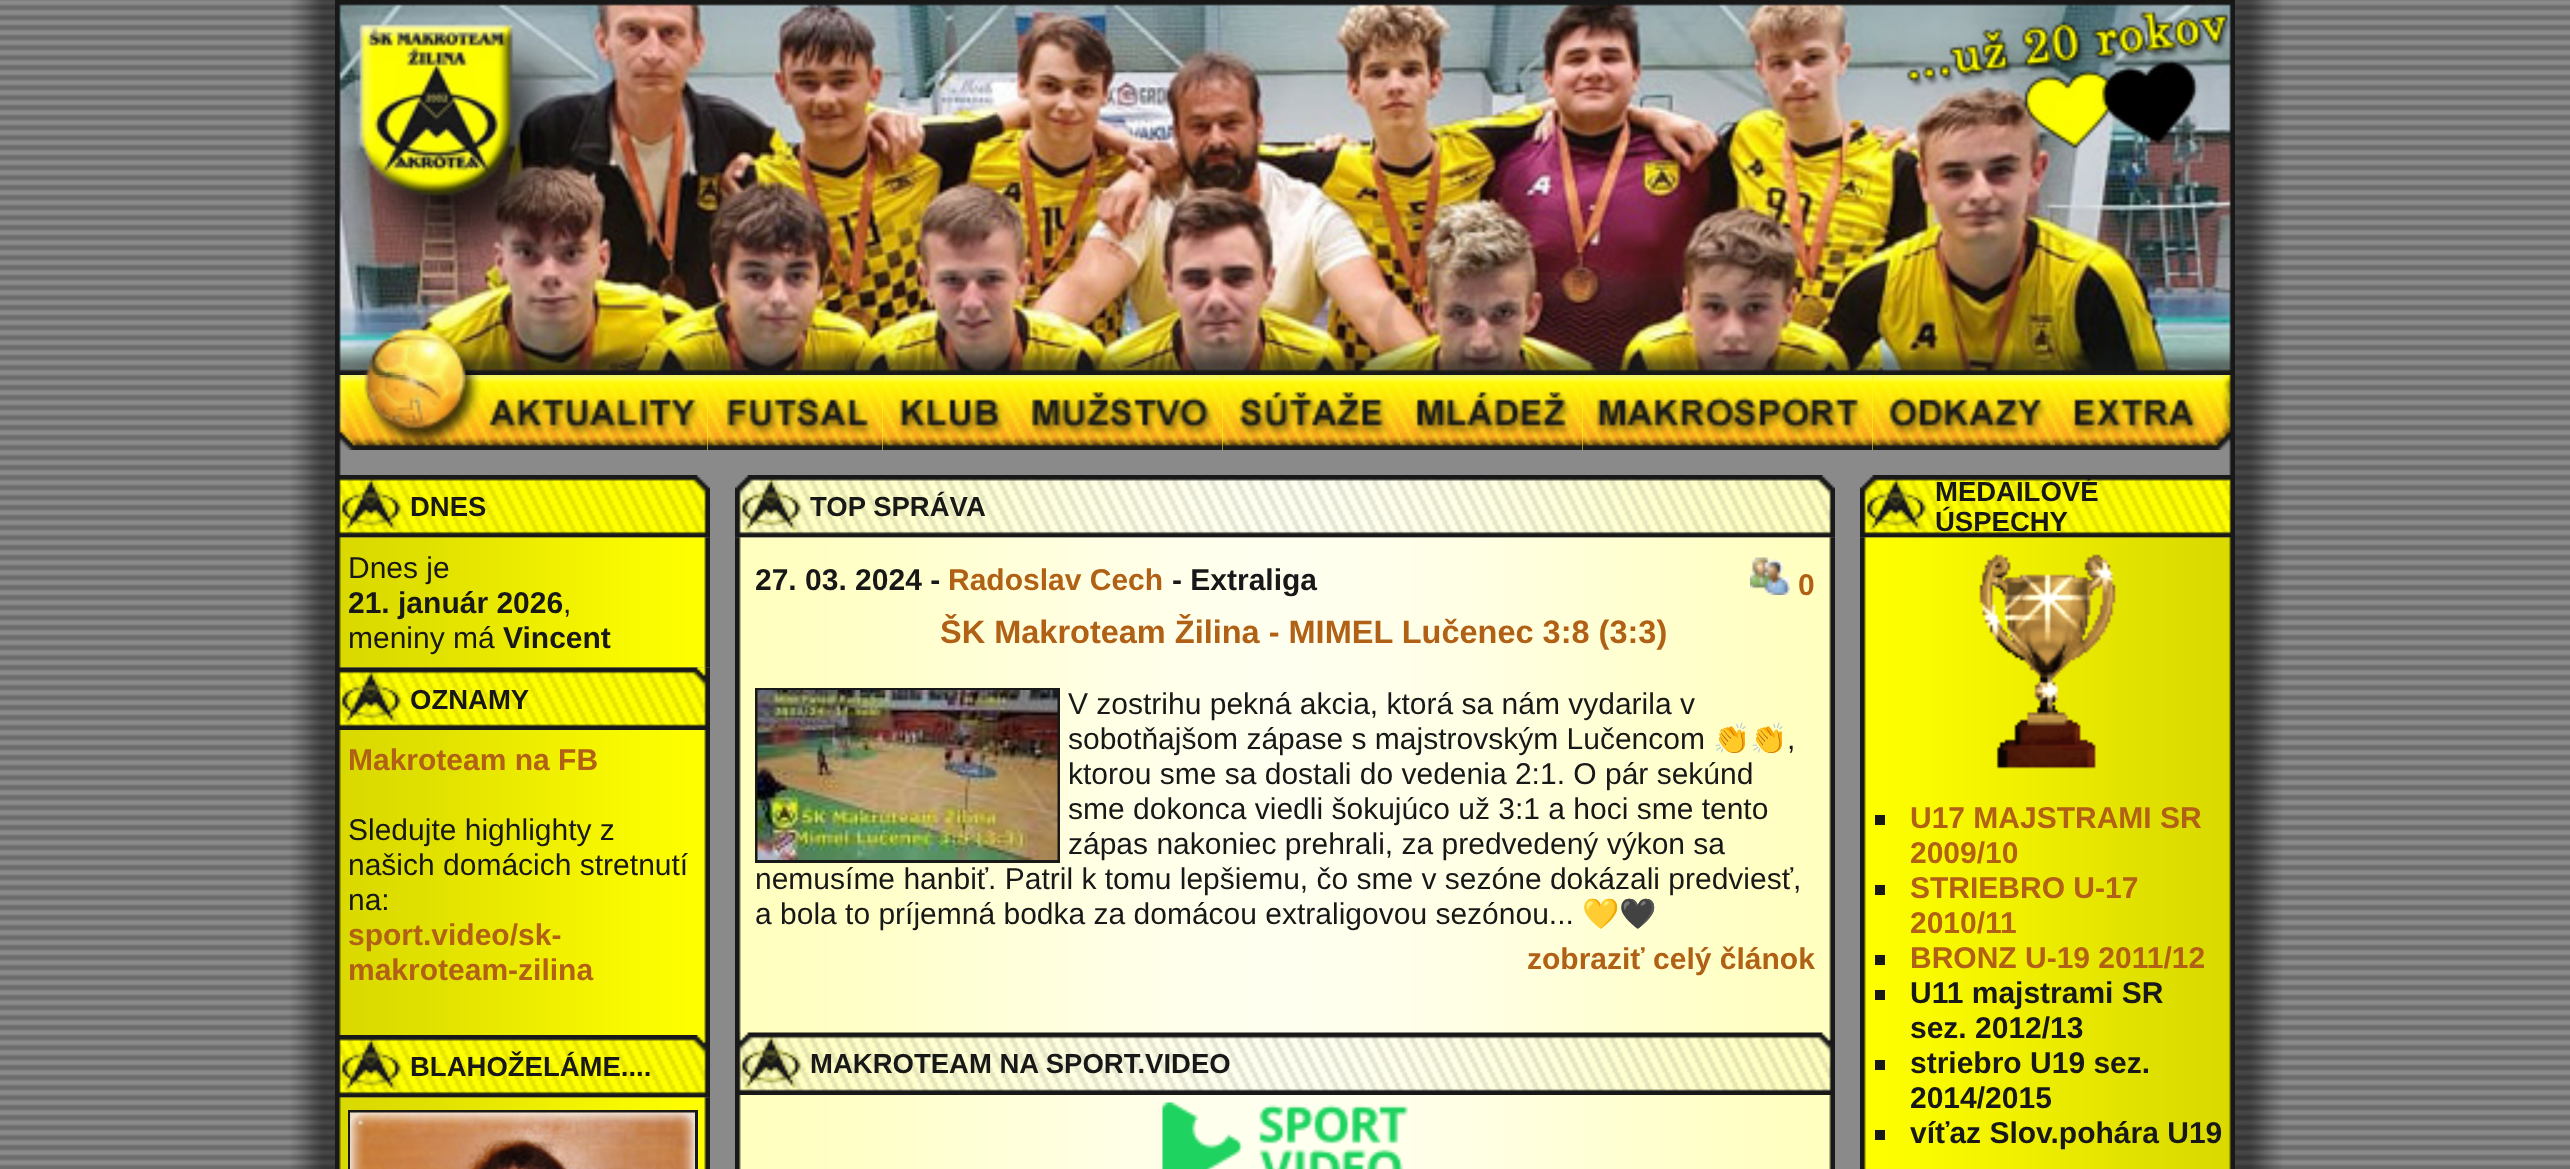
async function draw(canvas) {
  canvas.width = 2570
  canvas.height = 1169
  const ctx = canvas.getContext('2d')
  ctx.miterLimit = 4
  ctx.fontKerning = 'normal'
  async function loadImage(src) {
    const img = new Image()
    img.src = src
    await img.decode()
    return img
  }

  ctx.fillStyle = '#fff'
  ctx.fillRect(0, 0, 2570, 1169)
  ctx.drawImage(await loadImage('image10.png'), 0, 0, 2570, 1169)
  ctx.drawImage(await loadImage('image0.png'), 335, 375, 150, 75)
  ctx.fillStyle = '#fff90d'
  ctx.fillRect(707, 375, 1166, 75)
  ctx.drawImage(await loadImage('image1.png'), 485, 375, 223, 75)
  ctx.drawImage(await loadImage('image2.png'), 707, 375, 176, 75)
  ctx.drawImage(await loadImage('image3.png'), 882, 375, 133, 75)
  ctx.drawImage(await loadImage('image4.png'), 1015, 375, 208, 75)
  ctx.drawImage(await loadImage('image5.png'), 1222, 375, 178, 75)
  ctx.drawImage(await loadImage('image6.png'), 1400, 375, 183, 75)
  ctx.drawImage(await loadImage('image7.png'), 1582, 375, 291, 75)
  ctx.drawImage(await loadImage('image8.png'), 1872, 375, 183, 75)
  ctx.drawImage(await loadImage('image9.png'), 2055, 375, 180, 75)
  ctx.drawImage(await loadImage('image11.png'), 290, 0, 45, 1169)
  ctx.drawImage(await loadImage('image12.png'), 335, 0, 1900, 375)
  ctx.drawImage(await loadImage('image13.png'), 2235, 0, 47, 1169)
  ctx.drawImage(await loadImage('image14.png'), 335, 450, 1900, 25)
  ctx.drawImage(await loadImage('image15.png'), 335, 475, 1900, 694)
  ctx.drawImage(await loadImage('image16.png'), 335, 475, 375, 63)
  ctx.font = 'bold 27.5px Liberation Sans'
  ctx.fillStyle = '#181818'
  ctx.fillText('DNES', 410, 516)
  ctx.drawImage(await loadImage('image17.png'), 335, 537, 375, 131)
  ctx.font = '30px Liberation Sans'
  ctx.fillText('Dnes je', 348, 578)
  ctx.font = 'bold 30px Liberation Sans'
  ctx.fillText('21. január 2026', 348, 613)
  ctx.font = '30px Liberation Sans'
  ctx.fillText(',', 563, 613)
  ctx.fillText('meniny má', 348, 648)
  ctx.font = 'bold 30px Liberation Sans'
  ctx.fillText('Vincent', 503, 648)
  ctx.drawImage(await loadImage('image18.png'), 335, 667, 375, 63)
  ctx.font = 'bold 27.5px Liberation Sans'
  ctx.fillText('OZNAMY', 410, 709)
  ctx.drawImage(await loadImage('image19.png'), 335, 730, 375, 305)
  ctx.font = 'bold 30px Liberation Sans'
  ctx.fillStyle = '#b16115'
  ctx.fillText('Makroteam na FB', 348, 770)
  ctx.font = '30px Liberation Sans'
  ctx.fillStyle = '#181818'
  ctx.fillText('Sledujte highlighty z', 348, 840)
  ctx.fillText('našich domácich stretnutí', 348, 875)
  ctx.fillText('na:', 348, 910)
  ctx.font = 'bold 30px Liberation Sans'
  ctx.fillStyle = '#b16115'
  ctx.fillText('sport.video/sk-', 348, 945)
  ctx.fillText('makroteam-zilina', 348, 980)
  ctx.drawImage(await loadImage('image20.png'), 335, 1035, 375, 63)
  ctx.font = 'bold 27.5px Liberation Sans'
  ctx.fillStyle = '#181818'
  ctx.fillText('BLAHOŽELÁME....', 410, 1076)
  ctx.drawImage(await loadImage('image21.png'), 335, 1097, 375, 72)
  ctx.strokeStyle = '#181818'
  ctx.lineWidth = 3
  ctx.strokeRect(349.5, 1111.5, 347, 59)
  ctx.drawImage(await loadImage('image22.png'), 350, 1112, 345, 57)
  ctx.drawImage(await loadImage('image23.png'), 735, 475, 1100, 63)
  ctx.fillText('TOP SPRÁVA', 810, 516)
  ctx.drawImage(await loadImage('image24.png'), 735, 537, 1100, 632)
  ctx.font = 'bold 30px Liberation Sans'
  ctx.fillText('27. 03. 2024 -', 755, 590)
  ctx.fillStyle = '#b16115'
  ctx.fillText('Radoslav Cech', 948, 590)
  ctx.fillStyle = '#181818'
  ctx.fillText('- Extraliga', 1172, 590)
  ctx.drawImage(await loadImage('image25.png'), 1750, 557, 40, 38)
  ctx.fillStyle = '#b16115'
  ctx.fillText('0', 1798, 595)
  ctx.font = 'bold 32.5px Liberation Sans'
  ctx.fillText('ŠK Makroteam Žilina - MIMEL Lučenec 3:8 (3:3)', 940, 643)
  ctx.strokeRect(756.5, 689.5, 302, 172)
  ctx.drawImage(await loadImage('image26.png'), 757, 690, 301, 170)
  ctx.font = '30px Liberation Sans'
  ctx.fillStyle = '#181818'
  ctx.fillText('V zostrihu pekná akcia, ktorá sa nám vydarila v', 1068, 714)
  ctx.fillText('sobotňajšom zápase s majstrovským Lučencom', 1068, 749)
  ctx.font = '30px Noto Color Emoji'
  ctx.fillText('👏👏', 1713, 749)
  ctx.font = '30px Liberation Sans'
  ctx.fillText(',', 1787, 749)
  ctx.fillText('ktorou sme sa dostali do vedenia 2:1. O pár sekúnd', 1068, 784)
  ctx.fillText('sme dokonca viedli šokujúco už 3:1 a hoci sme tento', 1068, 819)
  ctx.fillText('zápas nakoniec prehrali, za predvedený výkon sa', 1068, 854)
  ctx.fillText('nemusíme hanbiť. Patril k tomu lepšiemu, čo sme v sezóne dokázali predviesť,', 755, 889)
  ctx.fillText('a bola to príjemná bodka za domácou extraligovou sezónou...', 755, 924)
  ctx.font = '30px Noto Color Emoji'
  ctx.fillText('💛🖤', 1582, 924)
  ctx.font = 'bold 30px Liberation Sans'
  ctx.fillStyle = '#b16115'
  ctx.fillText('zobraziť celý článok', 1527, 969)
  ctx.drawImage(await loadImage('image27.png'), 735, 1032, 1100, 63)
  ctx.font = 'bold 27.5px Liberation Sans'
  ctx.fillStyle = '#181818'
  ctx.fillText('MAKROTEAM NA SPORT.VIDEO', 810, 1073)
  ctx.drawImage(await loadImage('image28.png'), 1162, 1102, 246, 67)
  ctx.drawImage(await loadImage('image29.png'), 1860, 475, 375, 63)
  ctx.fillText('MEDAILOVÉ', 1935, 501)
  ctx.fillText('ÚSPECHY', 1935, 531)
  ctx.drawImage(await loadImage('image30.png'), 1860, 537, 375, 632)
  ctx.drawImage(await loadImage('image31.png'), 1979, 554, 137, 215)
  ctx.fillRect(1875, 815, 10, 10)
  ctx.font = 'bold 30px Liberation Sans'
  ctx.fillStyle = '#b16115'
  ctx.fillText('U17 MAJSTRAMI SR', 1910, 828)
  ctx.fillText('2009/10', 1910, 863)
  ctx.fillStyle = '#181818'
  ctx.fillRect(1875, 885, 10, 10)
  ctx.fillStyle = '#b16115'
  ctx.fillText('STRIEBRO U-17', 1910, 898)
  ctx.fillText('2010/11', 1910, 933)
  ctx.fillStyle = '#181818'
  ctx.fillRect(1875, 955, 10, 10)
  ctx.fillStyle = '#b16115'
  ctx.fillText('BRONZ U-19 2011/12', 1910, 968)
  ctx.fillStyle = '#181818'
  ctx.fillRect(1875, 990, 10, 10)
  ctx.fillText('U11 majstrami SR', 1910, 1003)
  ctx.fillText('sez. 2012/13', 1910, 1038)
  ctx.fillRect(1875, 1060, 10, 10)
  ctx.fillText('striebro U19 sez.', 1910, 1073)
  ctx.fillText('2014/2015', 1910, 1108)
  ctx.fillRect(1875, 1130, 10, 10)
  ctx.fillText('víťaz Slov.pohára U19', 1910, 1143)
}

draw(document.querySelector('canvas'))
